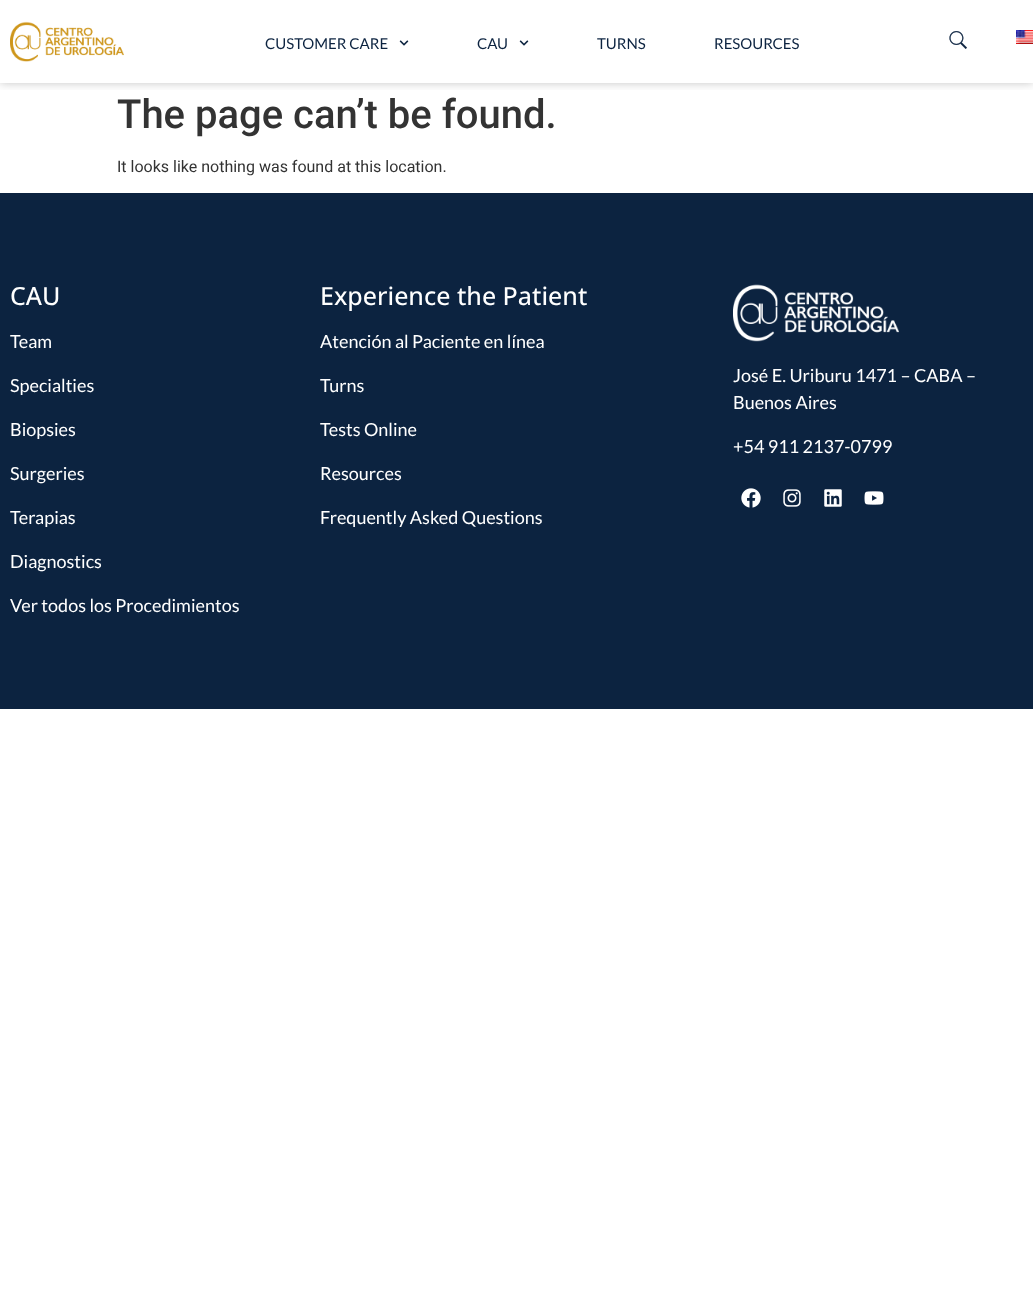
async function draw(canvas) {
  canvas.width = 1033
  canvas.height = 1316
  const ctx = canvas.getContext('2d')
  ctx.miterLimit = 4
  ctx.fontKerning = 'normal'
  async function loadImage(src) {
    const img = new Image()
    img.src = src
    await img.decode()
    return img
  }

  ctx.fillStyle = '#fff'
  ctx.fillRect(0, 0, 1033, 1316)
  ctx.save()
  ctx.beginPath()
  ctx.rect(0, 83, 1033, 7)
  ctx.clip()
  ctx.fillStyle = '#0000003b'
  ctx.filter = 'blur(5px)'
  ctx.beginPath()
  ctx.rect(0, 0, 1033, 83)
  ctx.fill()
  ctx.filter = 'none'
  ctx.restore()
  ctx.drawImage(await loadImage('image0.png'), 10, 21, 114, 41)
  ctx.font = '15px Lato'
  ctx.fillStyle = '#0c2340'
  ctx.fillText('CUSTOMER CARE', 265, 49)
  ctx.drawImage(await loadImage('image1.png'), 399, 40, 10, 6)
  ctx.fillText('CAU', 477, 49)
  ctx.drawImage(await loadImage('image1.png'), 519, 40, 10, 6)
  ctx.fillText('TURNS', 597, 49)
  ctx.fillText('RESOURCES', 714, 49)
  ctx.drawImage(await loadImage('image2.png'), 949, 31, 18, 18)
  ctx.drawImage(await loadImage('image3.png'), 1016, 30, 17, 14)
  ctx.font = '500 40px Roboto'
  ctx.fillStyle = '#333'
  ctx.fillText('The page can’t be found.', 117, 128)
  ctx.font = '16px Roboto'
  ctx.fillText('It looks like nothing was found at this location.', 117, 172)
  ctx.fillStyle = '#0c2340'
  ctx.fillRect(0, 193, 1033, 516)
  ctx.font = '500 25px Open Sans'
  ctx.fillStyle = '#fff'
  ctx.fillText('CAU', 10, 305)
  ctx.font = '18px Lato'
  ctx.fillText('Team', 10, 348)
  ctx.fillText('Specialties', 10, 392)
  ctx.fillText('Biopsies', 10, 436)
  ctx.fillText('Surgeries', 10, 480)
  ctx.fillText('Terapias', 10, 524)
  ctx.fillText('Diagnostics', 10, 568)
  ctx.fillText('Ver todos los Procedimientos', 10, 612)
  ctx.font = '500 25px Open Sans'
  ctx.fillText('Experience the Patient', 320, 305)
  ctx.font = '18px Lato'
  ctx.fillText('Atención al Paciente en línea', 320, 348)
  ctx.fillText('Turns', 320, 392)
  ctx.fillText('Tests Online', 320, 436)
  ctx.fillText('Resources', 320, 480)
  ctx.fillText('Frequently Asked Questions', 320, 524)
  ctx.drawImage(await loadImage('image4.png'), 733, 284, 166, 58)
  ctx.fillText('José E. Uriburu 1471 – CABA –', 733, 382)
  ctx.fillText('Buenos Aires', 733, 409)
  ctx.fillText('+54 911 2137-0799', 733, 453)
  ctx.drawImage(await loadImage('image5.png'), 741, 488, 20, 20)
  ctx.drawImage(await loadImage('image6.png'), 783, 489, 18, 18)
  ctx.drawImage(await loadImage('image7.png'), 824, 489, 18, 18)
  ctx.drawImage(await loadImage('image8.png'), 864, 491, 20, 14)
}

draw(document.querySelector('canvas'))
